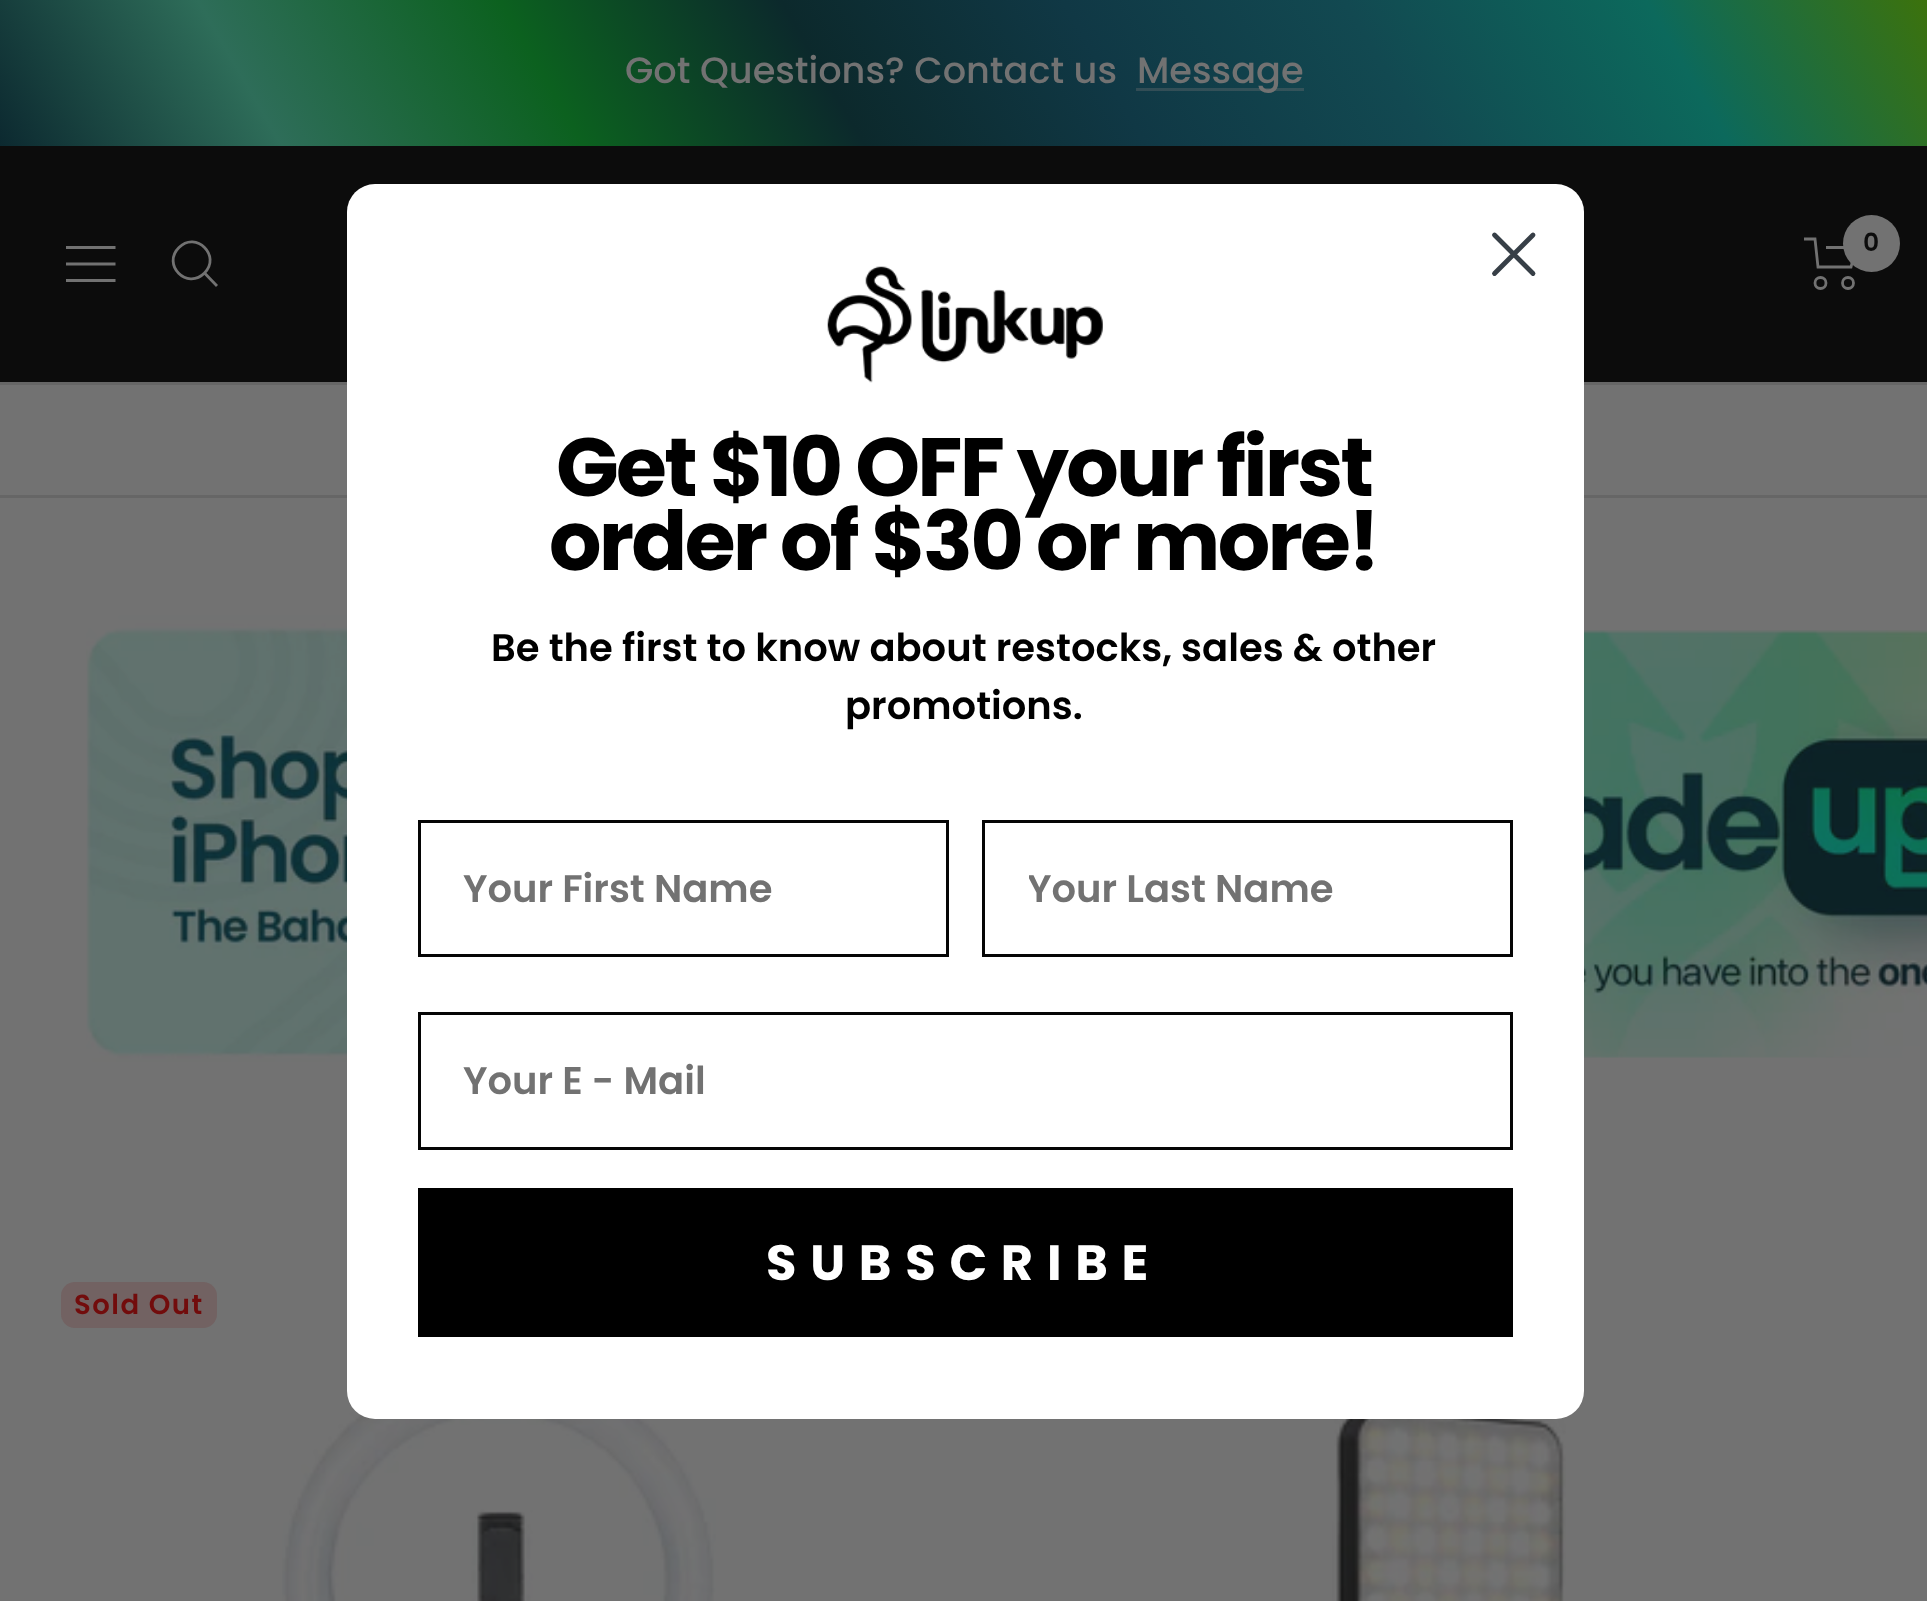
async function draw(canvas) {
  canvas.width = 1927
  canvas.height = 1601
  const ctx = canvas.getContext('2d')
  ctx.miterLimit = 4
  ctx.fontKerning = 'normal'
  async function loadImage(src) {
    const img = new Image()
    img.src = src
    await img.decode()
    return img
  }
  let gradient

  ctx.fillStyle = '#727272'
  ctx.fillRect(0, 0, 1927, 1601)
  gradient = ctx.createLinearGradient(209, 508, 1718, -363)
  gradient.addColorStop(0, '#0c2930')
  gradient.addColorStop(0.14, '#2e6d59')
  gradient.addColorStop(0.29, '#0c611f')
  gradient.addColorStop(0.43, '#0c292c')
  gradient.addColorStop(0.57, '#103845')
  gradient.addColorStop(0.71, '#124951')
  gradient.addColorStop(0.86, '#0c695c')
  gradient.addColorStop(1, '#3c720c')
  ctx.fillStyle = gradient
  ctx.fillRect(0, 0, 1927, 146)
  gradient = ctx.createLinearGradient(209, 508, 1718, -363)
  gradient.addColorStop(0, '#304247')
  gradient.addColorStop(0.14, '#466f62')
  gradient.addColorStop(0.29, '#30673c')
  gradient.addColorStop(0.43, '#304245')
  gradient.addColorStop(0.57, '#324c55')
  gradient.addColorStop(0.71, '#34575d')
  gradient.addColorStop(0.86, '#306c64')
  gradient.addColorStop(1, '#4f7230')
  ctx.fillStyle = gradient
  ctx.fillRect(1136, 88, 168, 3)
  ctx.font = '500 36.7px Poppins'
  ctx.fillStyle = '#727272'
  ctx.fillText('Got Questions? Contact us', 625, 83)
  ctx.fillText('Message', 1137, 83)
  ctx.fillStyle = '#0c0c0c'
  ctx.fillRect(0, 146, 1927, 236)
  ctx.beginPath()
  ctx.moveTo(66, 247.5)
  ctx.lineTo(115.5, 247.5)
  ctx.moveTo(66, 280.5)
  ctx.lineTo(115.5, 280.5)
  ctx.closePath()
  ctx.moveTo(66, 264)
  ctx.lineTo(115.5, 264)
  ctx.closePath()
  ctx.strokeStyle = '#727272'
  ctx.lineWidth = 2.8
  ctx.stroke()
  ctx.beginPath()
  ctx.moveTo(204.5, 273)
  ctx.bezierCurveTo(221.5, 256, 196, 230.5, 179, 247.5)
  ctx.bezierCurveTo(161.5, 264.5, 187, 290.5, 204.5, 273)
  ctx.closePath()
  ctx.moveTo(204.5, 273)
  ctx.lineTo(217, 286)
  ctx.stroke()
  ctx.beginPath()
  ctx.moveTo(1804, 239)
  ctx.lineTo(1815, 239)
  ctx.lineTo(1818, 267)
  ctx.lineTo(1851, 267)
  ctx.lineTo(1856, 247.5)
  ctx.lineTo(1826, 247.5)
  ctx.stroke()
  ctx.beginPath()
  ctx.arc(1820.5, 283, 5.5, 0, 2 * Math.PI)
  ctx.stroke()
  ctx.beginPath()
  ctx.arc(1848, 283, 5.5, 0, 2 * Math.PI)
  ctx.stroke()
  ctx.fillStyle = '#727272'
  ctx.beginPath()
  ctx.arc(1871.5, 243.5, 28.5, 0, 2 * Math.PI)
  ctx.fill()
  ctx.font = '600 25px Poppins'
  ctx.fillStyle = '#0c0c0c'
  ctx.fillText('0', 1863, 251)
  ctx.drawImage(await loadImage('image3.png'), 282, 1362, 434, 239)
  ctx.drawImage(await loadImage('image4.png'), 1332, 1417, 234, 184)
  ctx.fillStyle = '#fff'
  ctx.beginPath()
  ctx.roundRect(347, 184, 1237, 1235, 28)
  ctx.fill()
  ctx.beginPath()
  ctx.moveTo(1494.5, 235)
  ctx.lineTo(1533, 273.5)
  ctx.moveTo(1494.5, 273.5)
  ctx.lineTo(1533, 235)
  ctx.closePath()
  ctx.strokeStyle = '#373f47'
  ctx.lineWidth = 4.8
  ctx.lineCap = 'round'
  ctx.lineJoin = 'round'
  ctx.stroke()
  ctx.drawImage(await loadImage('image0.png'), 827, 266, 276, 117)
  ctx.letterSpacing = '-2.75px'
  ctx.font = 'bold 82.5px Poppins'
  ctx.fillStyle = '#000'
  ctx.fillText('Get $10 OFF your first', 556, 496)
  ctx.fillText('order of $30 or more!', 549, 570)
  ctx.letterSpacing = '0px'
  ctx.font = '600 38.5px Poppins'
  ctx.fillText('Be the first to know about restocks, sales & other', 491, 661)
  ctx.fillText('promotions.', 845, 719)
  ctx.strokeStyle = '#050505'
  ctx.lineWidth = 3
  ctx.lineJoin = 'miter'
  ctx.strokeRect(419.5, 821.5, 528, 134)
  ctx.fillStyle = '#727272'
  ctx.fillText('Your First Name', 463, 902)
  ctx.strokeRect(983.5, 821.5, 528, 134)
  ctx.save()
  ctx.beginPath()
  ctx.rect(1029, 861, 481, 58)
  ctx.clip()
  ctx.fillText('Your Last Name', 1027, 902)
  ctx.restore()
  ctx.strokeRect(419.5, 1013.5, 1092, 135)
  ctx.fillText('Your E - Mail', 463, 1094)
  ctx.fillStyle = '#000'
  ctx.fillRect(418, 1188, 1095, 149)
  ctx.letterSpacing = '13.75px'
  ctx.font = 'bold 49.5px Poppins'
  ctx.fillStyle = '#fff'
  ctx.fillText('SUBSCRIBE', 766, 1280)
  ctx.fillStyle = '#666'
  ctx.fillRect(0, 382, 347, 3)
  ctx.fillRect(0, 495, 347, 3)
  ctx.fillRect(1584, 382, 343, 3)
  ctx.fillRect(1584, 495, 343, 3)
  ctx.drawImage(await loadImage('image1.png'), 86, 564, 261, 498)
  ctx.drawImage(await loadImage('image2.png'), 1584, 630, 343, 428)
  ctx.fillStyle = '#726262'
  ctx.beginPath()
  ctx.roundRect(61, 1282, 156, 46, 14)
  ctx.fill()
  ctx.letterSpacing = '1.5px'
  ctx.font = '600 27.5px Poppins'
  ctx.fillStyle = '#720c0c'
  ctx.fillText('Sold Out', 74, 1314)
}

draw(document.querySelector('canvas'))
